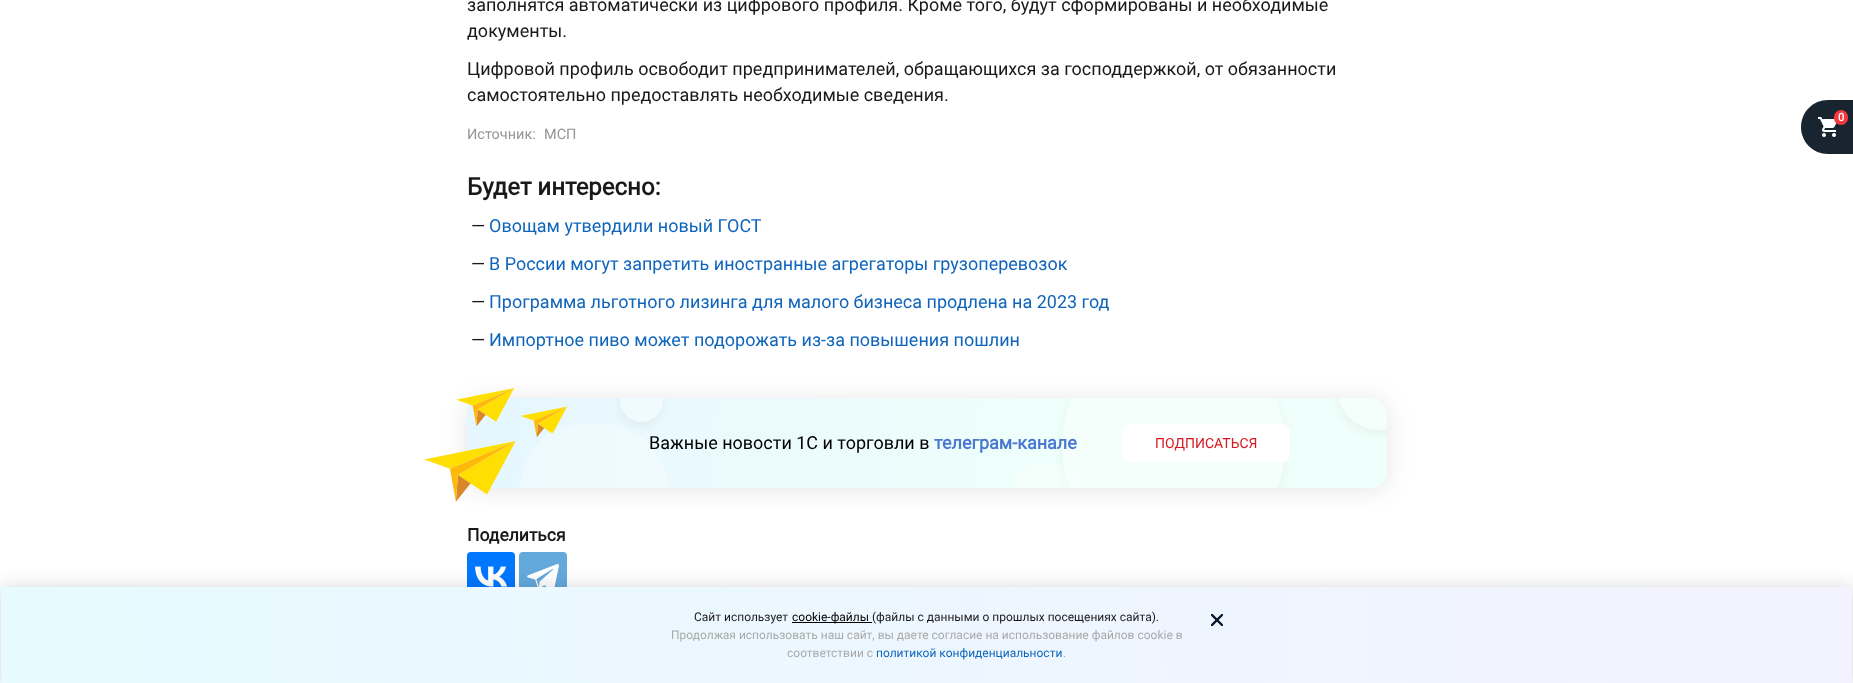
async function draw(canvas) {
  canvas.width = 1853
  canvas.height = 683
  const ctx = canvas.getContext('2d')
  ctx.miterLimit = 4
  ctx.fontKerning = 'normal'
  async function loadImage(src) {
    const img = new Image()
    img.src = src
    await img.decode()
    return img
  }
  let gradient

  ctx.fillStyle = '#fff'
  ctx.fillRect(0, 0, 1853, 683)
  ctx.font = '18px Roboto'
  ctx.fillStyle = '#1a1919'
  ctx.fillText('заполнятся автоматически из цифрового профиля. Кроме того, будут сформированы и необходимые', 467, 11)
  ctx.fillText('документы.', 467, 37)
  ctx.fillText('Цифровой профиль освободит предпринимателей, обращающихся за господдержкой, от обязанности', 467, 75)
  ctx.fillText('самостоятельно предоставлять необходимые сведения.', 467, 101)
  ctx.font = '14.5px Roboto'
  ctx.fillStyle = '#959595'
  ctx.fillText('Источник:', 467, 139)
  ctx.fillText('МСП', 544, 139)
  ctx.font = 'bold 24px Roboto'
  ctx.fillStyle = '#1a1919'
  ctx.fillText('Будет интересно:', 467, 195)
  ctx.font = '18px Roboto'
  ctx.fillText('—', 471, 232)
  ctx.fillStyle = '#0f65bb'
  ctx.fillText('Овощам утвердили новый ГОСТ', 489, 232)
  ctx.fillStyle = '#1a1919'
  ctx.fillText('—', 471, 270)
  ctx.fillStyle = '#0f65bb'
  ctx.fillText('В России могут запретить иностранные агрегаторы грузоперевозок', 489, 270)
  ctx.fillStyle = '#1a1919'
  ctx.fillText('—', 471, 308)
  ctx.fillStyle = '#0f65bb'
  ctx.fillText('Программа льготного лизинга для малого бизнеса продлена на 2023 год', 489, 308)
  ctx.fillStyle = '#1a1919'
  ctx.fillText('—', 471, 346)
  ctx.fillStyle = '#0f65bb'
  ctx.fillText('Импортное пиво может подорожать из-за повышения пошлин', 489, 346)
  ctx.fillStyle = '#0000001a'
  ctx.filter = 'blur(12.5px)'
  ctx.beginPath()
  ctx.roundRect(467, 400, 920, 90, 16)
  ctx.fill()
  ctx.filter = 'none'
  ctx.fillStyle = '#effffb'
  ctx.beginPath()
  ctx.roundRect(467, 398, 920, 90, 16)
  ctx.fill()
  gradient = ctx.createLinearGradient(462, 426, 1388, 460)
  gradient.addColorStop(0, '#e6f6ff')
  gradient.addColorStop(0.64, '#e6f6ff00')
  ctx.fillStyle = gradient
  ctx.beginPath()
  ctx.roundRect(467, 398, 920, 90, 16)
  ctx.fill()
  ctx.drawImage(await loadImage('image0.png'), 424, 388, 143, 114)
  ctx.fillStyle = '#ffffff4d'
  ctx.beginPath()
  ctx.roundRect(520, 424, 148, 64, [74, 74, 0, 0])
  ctx.fill()
  ctx.save()
  ctx.beginPath()
  ctx.roundRect(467, 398, 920, 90, 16)
  ctx.clip()
  ctx.fillStyle = '#ae907b1f'
  ctx.filter = 'blur(5px)'
  ctx.beginPath()
  ctx.roundRect(620, 382, 43, 44, 21.5)
  ctx.fill()
  ctx.filter = 'none'
  ctx.restore()
  ctx.save()
  ctx.beginPath()
  ctx.roundRect(467, 398, 920, 90, 16)
  ctx.clip()
  ctx.fillStyle = '#effbfe'
  ctx.beginPath()
  ctx.roundRect(620, 378, 43, 44, 21.5)
  ctx.fill()
  ctx.restore()
  ctx.save()
  ctx.beginPath()
  ctx.roundRect(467, 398, 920, 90, 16)
  ctx.clip()
  ctx.fillStyle = '#dbded566'
  ctx.filter = 'blur(5px)'
  ctx.beginPath()
  ctx.roundRect(1062, 336, 223, 227, 111.5)
  ctx.fill()
  ctx.filter = 'none'
  ctx.restore()
  ctx.save()
  ctx.beginPath()
  ctx.roundRect(467, 398, 920, 90, 16)
  ctx.clip()
  ctx.fillStyle = '#f4fffc'
  ctx.beginPath()
  ctx.roundRect(1062, 332, 223, 227, 111.5)
  ctx.fill()
  ctx.restore()
  ctx.save()
  ctx.beginPath()
  ctx.roundRect(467, 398, 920, 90, 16)
  ctx.clip()
  ctx.beginPath()
  ctx.moveTo(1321, 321)
  ctx.lineTo(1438, 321)
  ctx.lineTo(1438, 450)
  ctx.lineTo(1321, 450)
  ctx.closePath()
  ctx.moveTo(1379.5, 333)
  ctx.bezierCurveTo(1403, 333, 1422, 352, 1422, 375.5)
  ctx.lineTo(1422, 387.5)
  ctx.bezierCurveTo(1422, 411, 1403, 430, 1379.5, 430)
  ctx.bezierCurveTo(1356, 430, 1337, 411, 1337, 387.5)
  ctx.lineTo(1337, 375.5)
  ctx.bezierCurveTo(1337, 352, 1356, 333, 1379.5, 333)
  ctx.closePath()
  ctx.clip('evenodd')
  ctx.fillStyle = '#dcded566'
  ctx.filter = 'blur(5px)'
  ctx.beginPath()
  ctx.roundRect(1337, 337, 85, 97, 42.5)
  ctx.fill()
  ctx.filter = 'none'
  ctx.restore()
  ctx.save()
  ctx.beginPath()
  ctx.roundRect(467, 398, 920, 90, 16)
  ctx.clip()
  ctx.beginPath()
  ctx.roundRect(1337, 333, 85, 97, 42.5)
  ctx.fill()
  ctx.restore()
  ctx.fillStyle = '#000'
  ctx.fillText('Важные новости 1С и торговли в', 649, 449)
  ctx.font = 'bold 18px Roboto'
  ctx.fillStyle = '#4b78cf'
  ctx.fillText('телеграм-канале', 934, 449)
  ctx.fillStyle = '#fff'
  ctx.beginPath()
  ctx.roundRect(1122, 424, 168, 38, 8)
  ctx.fill()
  ctx.font = '14px Roboto'
  ctx.fillStyle = '#d91920'
  ctx.fillText('ПОДПИСАТЬСЯ', 1155, 448)
  ctx.fillStyle = '#ffffff4d'
  ctx.beginPath()
  ctx.roundRect(1012, 465, 72, 23, [36, 36, 0, 0])
  ctx.fill()
  ctx.font = 'bold 17.5px Roboto'
  ctx.fillStyle = '#1a1919'
  ctx.fillText('Поделиться', 467, 541)
  ctx.fillStyle = '#07f'
  ctx.beginPath()
  ctx.roundRect(467, 552, 48, 48, 4)
  ctx.fill()
  ctx.drawImage(await loadImage('image1.png'), 475, 566, 33, 21)
  ctx.fillStyle = '#64a9dc'
  ctx.beginPath()
  ctx.roundRect(519, 552, 48, 48, 4)
  ctx.fill()
  ctx.drawImage(await loadImage('image2.png'), 527, 564, 32, 23)
  ctx.fillStyle = '#182531'
  ctx.beginPath()
  ctx.moveTo(1828, 100)
  ctx.lineTo(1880, 100)
  ctx.lineTo(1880, 154)
  ctx.lineTo(1828, 154)
  ctx.bezierCurveTo(1813, 154, 1801, 142, 1801, 127)
  ctx.bezierCurveTo(1801, 112, 1813, 100, 1828, 100)
  ctx.closePath()
  ctx.fill()
  ctx.drawImage(await loadImage('image3.png'), 1818, 117, 19, 20)
  ctx.fillStyle = '#f5383f'
  ctx.beginPath()
  ctx.roundRect(1834, 110, 14, 15, 7)
  ctx.fill()
  ctx.font = 'bold 11px Roboto'
  ctx.fillStyle = '#fff'
  ctx.fillText('0', 1838, 121)
  ctx.fillStyle = '#0000002e'
  ctx.filter = 'blur(10px)'
  ctx.beginPath()
  ctx.rect(0, 589, 1853, 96)
  ctx.fill()
  ctx.filter = 'none'
  gradient = ctx.createLinearGradient(0.4, 559, 1853, 523)
  gradient.addColorStop(0, '#e7fbff')
  gradient.addColorStop(1, '#f3f2ff')
  ctx.fillStyle = gradient
  ctx.fillRect(1, 587, 1851, 1)
  gradient = ctx.createLinearGradient(0.4, 653, 1853, 617)
  gradient.addColorStop(0, '#e7fbff')
  gradient.addColorStop(1, '#f3f2ff')
  ctx.fillStyle = gradient
  ctx.fillRect(1, 588, 1851, 94)
  gradient = ctx.createLinearGradient(0.4, 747, 1853, 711)
  gradient.addColorStop(0, '#e7fbff')
  gradient.addColorStop(1, '#f3f2ff')
  ctx.fillStyle = gradient
  ctx.fillRect(1, 682, 1851, 1)
  ctx.font = '12px Roboto'
  ctx.fillStyle = '#1a1919'
  ctx.fillText('Cайт использует', 694, 621)
  ctx.fillStyle = '#000'
  ctx.fillRect(792, 622, 80, 1)
  ctx.fillText('cookie-файлы', 792, 621)
  ctx.fillStyle = '#1a1919'
  ctx.fillText('(файлы с данными о прошлых посещениях сайта).', 872, 621)
  ctx.fillStyle = '#a9a9a9'
  ctx.fillText('Продолжая использовать наш сайт, вы даете согласие на использование файлов cookie в', 671, 639)
  ctx.fillText('соответствии с', 787, 657)
  ctx.fillStyle = '#0f65bb'
  ctx.fillText('политикой конфиденциальности', 876, 657)
  ctx.fillStyle = '#a9a9a9'
  ctx.fillText('.', 1063, 657)
  ctx.drawImage(await loadImage('image4.png'), 1211, 614, 12, 12)
}

draw(document.querySelector('canvas'))
